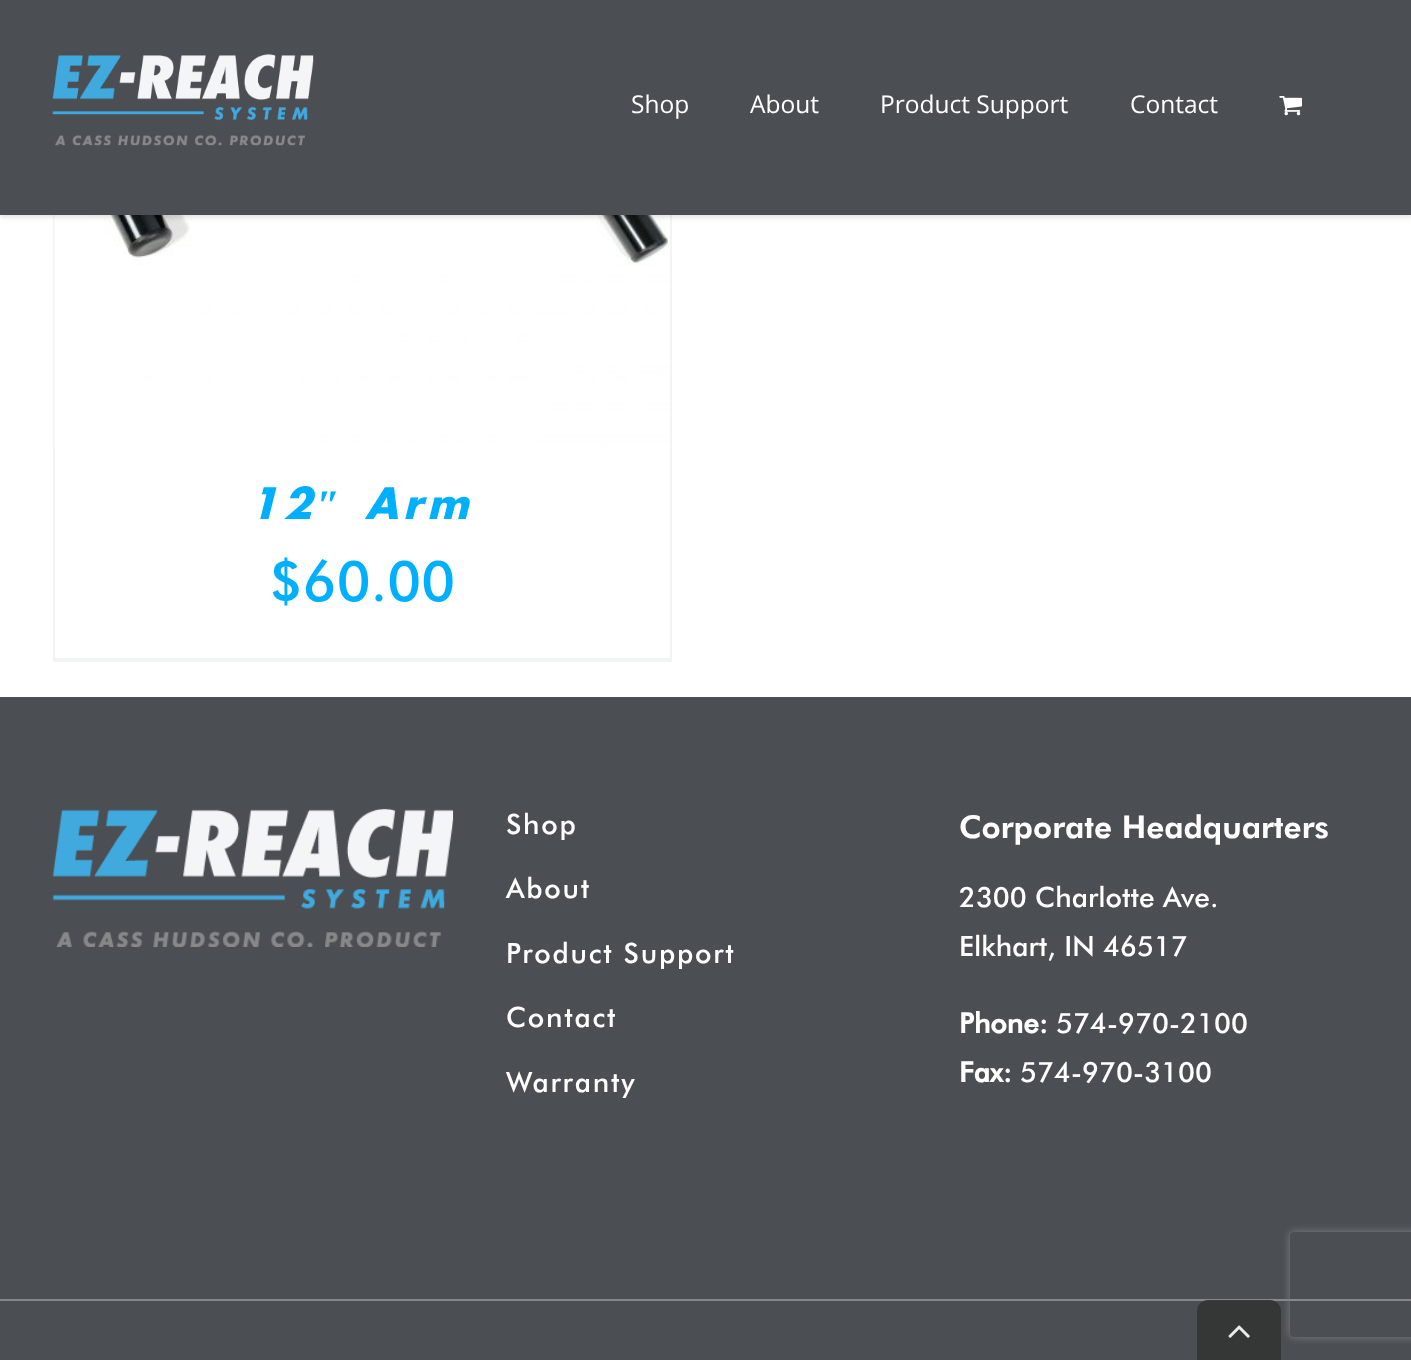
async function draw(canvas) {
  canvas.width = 1411
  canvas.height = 1360
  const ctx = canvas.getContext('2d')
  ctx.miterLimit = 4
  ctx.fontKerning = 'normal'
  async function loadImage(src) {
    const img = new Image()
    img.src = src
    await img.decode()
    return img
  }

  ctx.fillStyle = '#fff'
  ctx.fillRect(0, 0, 1411, 1360)
  ctx.fillStyle = '#f2f3f5'
  ctx.fillRect(670, 215, 2, 447)
  ctx.fillRect(53, 658, 619, 4)
  ctx.fillRect(53, 215, 2, 447)
  ctx.drawImage(await loadImage('image2.png'), 54, 215, 616, 233)
  ctx.fillStyle = '#0000001f'
  ctx.filter = 'blur(2.5px)'
  ctx.beginPath()
  ctx.rect(0, 2, 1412, 215)
  ctx.fill()
  ctx.filter = 'none'
  ctx.fillStyle = '#4b4f54'
  ctx.fillRect(0, 0, 1411, 215)
  ctx.drawImage(await loadImage('image0.png'), 52, 54, 262, 92)
  ctx.font = '24.5px Open Sans'
  ctx.fillStyle = '#fff'
  ctx.fillText('Shop', 631, 113)
  ctx.fillText('About', 750, 113)
  ctx.fillText('Product Support', 880, 113)
  ctx.fillText('Contact', 1130, 113)
  ctx.drawImage(await loadImage('image1.png'), 1279, 96, 23, 20)
  ctx.letterSpacing = '5px'
  ctx.font = 'italic bold 42px Futura'
  ctx.fillStyle = '#00b0ff'
  ctx.fillText('12', 249, 519)
  ctx.font = 'italic bold 42px Liberation Serif'
  ctx.fillText('″', 317, 519)
  ctx.font = 'italic bold 42px Futura'
  ctx.fillText('Arm', 365, 519)
  ctx.letterSpacing = '0px'
  ctx.font = '500 56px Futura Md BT'
  ctx.fillText('$60.00', 269, 601)
  ctx.fillStyle = '#4b4f54'
  ctx.fillRect(0, 697, 1411, 602)
  ctx.drawImage(await loadImage('image3.png'), 52, 808, 402, 139)
  ctx.letterSpacing = '1.75px'
  ctx.font = '500 28px Futura Md BT'
  ctx.fillStyle = '#fff'
  ctx.fillText('Shop', 506, 834)
  ctx.fillText('About', 506, 898)
  ctx.fillText('Product Support', 506, 963)
  ctx.fillText('Contact', 506, 1027)
  ctx.fillText('Warranty', 506, 1092)
  ctx.letterSpacing = '0px'
  ctx.font = '900 31.5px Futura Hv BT'
  ctx.fillText('Corporate Headquarters', 959, 838)
  ctx.font = '500 28px Futura Md BT'
  ctx.fillText('2300 Charlotte Ave.', 959, 907)
  ctx.fillText('Elkhart, IN 46517', 959, 956)
  ctx.font = 'bold 28px Futura Md BT'
  ctx.fillText('Phone:', 959, 1033)
  ctx.font = '500 28px Futura Md BT'
  ctx.fillText('574-970-2100', 1056, 1033)
  ctx.font = 'bold 28px Futura Md BT'
  ctx.fillText('Fax:', 959, 1082)
  ctx.font = '500 28px Futura Md BT'
  ctx.fillText('574-970-3100', 1020, 1082)
  ctx.fillStyle = '#4b4f54'
  ctx.fillRect(0, 1301, 1411, 59)
  ctx.fillStyle = '#878787'
  ctx.fillRect(0, 1299, 1411, 2)
  ctx.save()
  ctx.beginPath()
  ctx.moveTo(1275, 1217)
  ctx.lineTo(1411, 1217)
  ctx.lineTo(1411, 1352)
  ctx.lineTo(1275, 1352)
  ctx.closePath()
  ctx.moveTo(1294, 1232)
  ctx.lineTo(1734, 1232)
  ctx.bezierCurveTo(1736, 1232, 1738, 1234, 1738, 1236)
  ctx.lineTo(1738, 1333)
  ctx.bezierCurveTo(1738, 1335, 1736, 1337, 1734, 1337)
  ctx.lineTo(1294, 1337)
  ctx.bezierCurveTo(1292, 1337, 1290, 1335, 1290, 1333)
  ctx.lineTo(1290, 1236)
  ctx.bezierCurveTo(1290, 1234, 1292, 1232, 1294, 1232)
  ctx.closePath()
  ctx.clip('evenodd')
  ctx.fillStyle = '#808080'
  ctx.filter = 'blur(4.5px)'
  ctx.beginPath()
  ctx.roundRect(1290, 1232, 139, 105, 4)
  ctx.fill()
  ctx.filter = 'none'
  ctx.restore()
  ctx.fillStyle = '#333333e6'
  ctx.beginPath()
  ctx.moveTo(1208, 1300)
  ctx.lineTo(1270, 1300)
  ctx.bezierCurveTo(1276, 1300, 1281, 1305, 1281, 1311)
  ctx.lineTo(1281, 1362)
  ctx.lineTo(1197, 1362)
  ctx.lineTo(1197, 1311)
  ctx.bezierCurveTo(1197, 1305, 1202, 1300, 1208, 1300)
  ctx.closePath()
  ctx.fill()
  ctx.drawImage(await loadImage('image4.png'), 1228, 1325, 22, 13)
}

draw(document.querySelector('canvas'))
